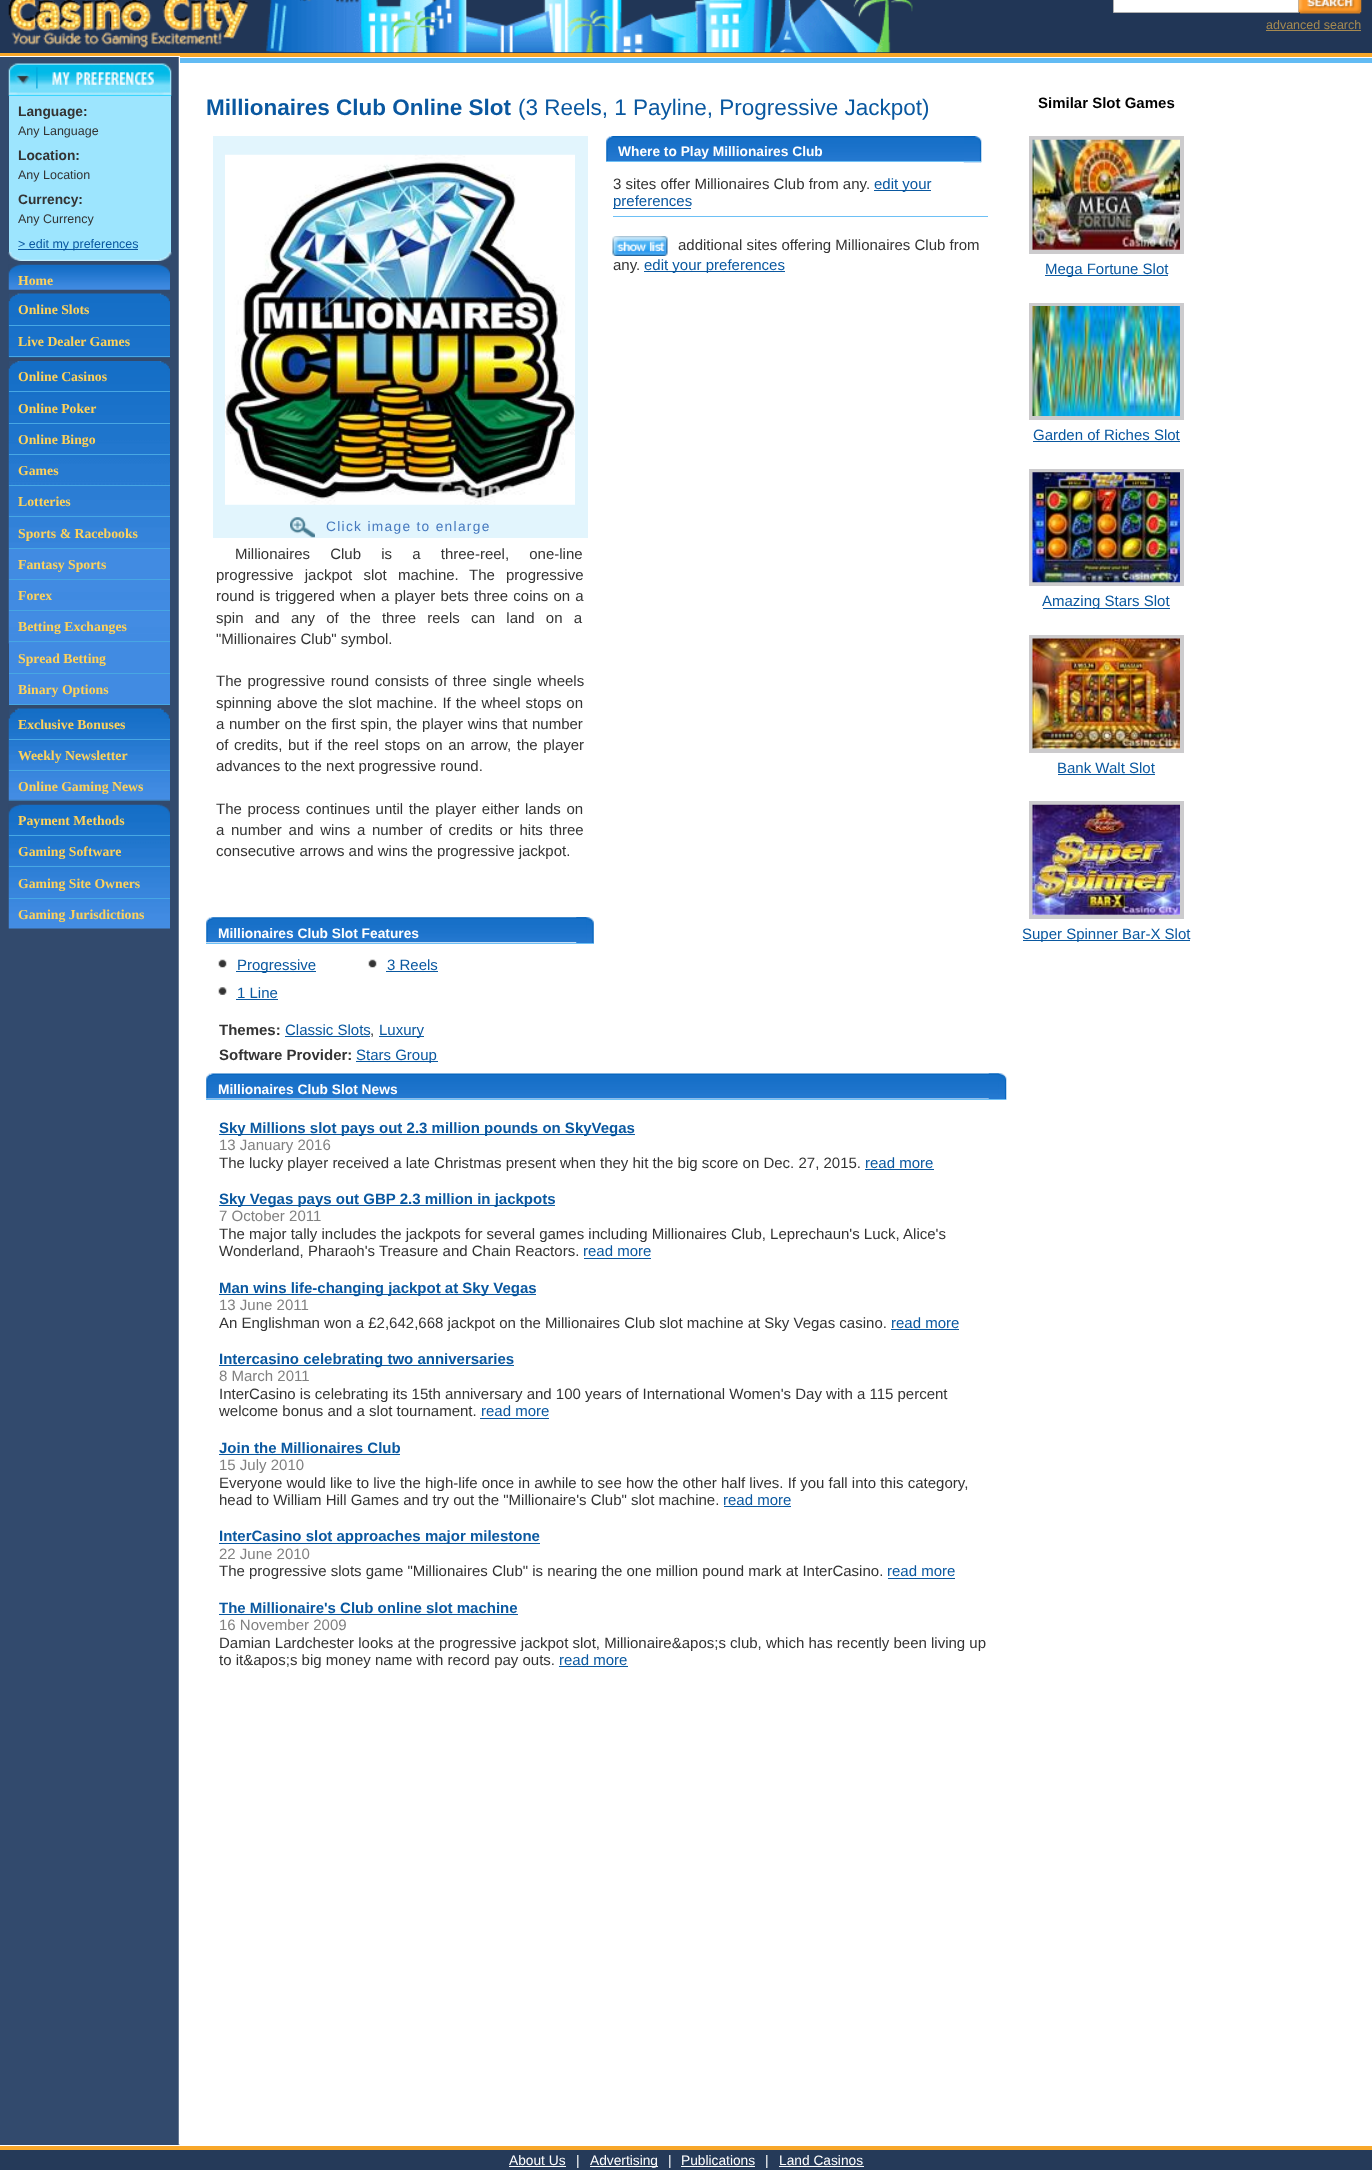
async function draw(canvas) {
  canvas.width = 1372
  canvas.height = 2182
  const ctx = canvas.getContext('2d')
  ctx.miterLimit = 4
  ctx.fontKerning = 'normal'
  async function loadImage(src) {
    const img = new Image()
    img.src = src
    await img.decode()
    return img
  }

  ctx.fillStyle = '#fff'
  ctx.fillRect(0, 0, 1372, 2182)
  ctx.fillStyle = '#213656'
  ctx.fillRect(0, 0, 1372, 53)
  ctx.drawImage(await loadImage('image0.png'), 266, 0, 647, 53)
  ctx.fillStyle = '#f8a729'
  ctx.fillRect(0, 53, 1372, 4)
  ctx.drawImage(await loadImage('image1.png'), 8, 0, 240, 48)
  ctx.fillStyle = '#fff'
  ctx.beginPath()
  ctx.rect(1113.5, -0.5, 185, 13)
  ctx.fill()
  ctx.strokeStyle = '#b0b0b0'
  ctx.stroke()
  ctx.drawImage(await loadImage('image2.png'), 1298, 0, 64, 14)
  ctx.font = '12.5px Liberation Sans'
  ctx.fillStyle = '#a68a51'
  ctx.fillText('advanced search', 1266, 29)
  ctx.fillRect(1266, 30, 95, 1)
  ctx.fillStyle = '#324a6d'
  ctx.fillRect(0, 57, 180, 2088)
  ctx.drawImage(await loadImage('image3.png'), 178, 57, 2, 2088)
  ctx.fillStyle = '#fff'
  ctx.fillRect(0, 56, 180, 1)
  ctx.drawImage(await loadImage('image4.png'), 8, 63, 164, 33)
  ctx.fillStyle = '#9de5fe'
  ctx.fillRect(9, 96, 162, 157)
  ctx.font = 'bold 13.75px Liberation Sans'
  ctx.fillStyle = '#333'
  ctx.fillText('Language:', 18, 116)
  ctx.font = '12.5px Liberation Sans'
  ctx.fillText('Any Language', 18, 135)
  ctx.font = 'bold 13.75px Liberation Sans'
  ctx.fillText('Location:', 18, 160)
  ctx.font = '12.5px Liberation Sans'
  ctx.fillText('Any Location', 18, 179)
  ctx.font = 'bold 13.75px Liberation Sans'
  ctx.fillText('Currency:', 18, 204)
  ctx.font = '12.5px Liberation Sans'
  ctx.fillText('Any Currency', 18, 223)
  ctx.fillStyle = '#0a58a0'
  ctx.fillRect(18, 249, 120, 1)
  ctx.fillText('> edit my preferences', 18, 248)
  ctx.drawImage(await loadImage('image5.png'), 8, 252, 164, 9)
  ctx.drawImage(await loadImage('image6.png'), 8, 264, 162, 26)
  ctx.font = 'bold 13.75px Liberation Serif'
  ctx.fillStyle = '#fed25b'
  ctx.fillText('Home', 18, 285)
  ctx.drawImage(await loadImage('image7.png'), 8, 293, 162, 65)
  ctx.fillStyle = '#47a7e3'
  ctx.fillRect(9, 325, 161, 1)
  ctx.fillStyle = '#fed25b'
  ctx.fillText('Online Slots', 18, 314)
  ctx.fillStyle = '#47a7e3'
  ctx.fillRect(9, 356, 161, 1)
  ctx.fillStyle = '#fed25b'
  ctx.fillText('Live Dealer Games', 18, 346)
  ctx.drawImage(await loadImage('image8.png'), 8, 361, 162, 283)
  ctx.fillStyle = '#47a7e3'
  ctx.fillRect(9, 391, 161, 1)
  ctx.fillStyle = '#fed25b'
  ctx.fillText('Online Casinos', 18, 381)
  ctx.fillStyle = '#47a7e3'
  ctx.fillRect(9, 423, 161, 1)
  ctx.fillStyle = '#fed25b'
  ctx.fillText('Online Poker', 18, 413)
  ctx.fillStyle = '#47a7e3'
  ctx.fillRect(9, 454, 161, 1)
  ctx.fillStyle = '#fed25b'
  ctx.fillText('Online Bingo', 18, 444)
  ctx.fillStyle = '#47a7e3'
  ctx.fillRect(9, 485, 161, 1)
  ctx.fillStyle = '#fed25b'
  ctx.fillText('Games', 18, 475)
  ctx.fillStyle = '#47a7e3'
  ctx.fillRect(9, 516, 161, 1)
  ctx.fillStyle = '#fed25b'
  ctx.fillText('Lotteries', 18, 506)
  ctx.fillStyle = '#47a7e3'
  ctx.fillRect(9, 548, 161, 1)
  ctx.fillStyle = '#fed25b'
  ctx.fillText('Sports & Racebooks', 18, 538)
  ctx.fillStyle = '#418be2'
  ctx.fillRect(9, 549, 161, 30)
  ctx.fillStyle = '#47a7e3'
  ctx.fillRect(9, 579, 161, 1)
  ctx.fillStyle = '#fed25b'
  ctx.fillText('Fantasy Sports', 18, 569)
  ctx.fillStyle = '#418be2'
  ctx.fillRect(9, 580, 161, 12)
  ctx.fillStyle = '#47a7e3'
  ctx.fillRect(9, 610, 161, 1)
  ctx.fillStyle = '#fed25b'
  ctx.fillText('Forex', 18, 600)
  ctx.fillStyle = '#418be2'
  ctx.fillRect(9, 627, 161, 6)
  ctx.fillStyle = '#47a7e3'
  ctx.fillRect(9, 641, 161, 1)
  ctx.fillStyle = '#fed25b'
  ctx.fillText('Betting Exchanges', 18, 631)
  ctx.fillStyle = '#418be2'
  ctx.fillRect(9, 643, 161, 30)
  ctx.fillStyle = '#47a7e3'
  ctx.fillRect(9, 673, 161, 1)
  ctx.fillStyle = '#fed25b'
  ctx.fillText('Spread Betting', 18, 663)
  ctx.fillStyle = '#418be2'
  ctx.fillRect(9, 674, 161, 30)
  ctx.fillStyle = '#47a7e3'
  ctx.fillRect(9, 704, 161, 1)
  ctx.fillStyle = '#fed25b'
  ctx.fillText('Binary Options', 18, 694)
  ctx.drawImage(await loadImage('image9.png'), 8, 708, 162, 93)
  ctx.fillStyle = '#47a7e3'
  ctx.fillRect(9, 739, 161, 1)
  ctx.fillStyle = '#fed25b'
  ctx.fillText('Exclusive Bonuses', 18, 729)
  ctx.fillStyle = '#47a7e3'
  ctx.fillRect(9, 770, 161, 1)
  ctx.fillStyle = '#fed25b'
  ctx.fillText('Weekly Newsletter', 18, 760)
  ctx.fillText('Online Gaming News', 18, 791)
  ctx.drawImage(await loadImage('image10.png'), 8, 804, 162, 125)
  ctx.fillStyle = '#47a7e3'
  ctx.fillRect(9, 835, 161, 1)
  ctx.fillStyle = '#fed25b'
  ctx.fillText('Payment Methods', 18, 825)
  ctx.fillStyle = '#47a7e3'
  ctx.fillRect(9, 866, 161, 1)
  ctx.fillStyle = '#fed25b'
  ctx.fillText('Gaming Software', 18, 856)
  ctx.fillStyle = '#47a7e3'
  ctx.fillRect(9, 898, 161, 1)
  ctx.fillStyle = '#fed25b'
  ctx.fillText('Gaming Site Owners', 18, 888)
  ctx.fillText('Gaming Jurisdictions', 18, 919)
  ctx.fillStyle = '#62bbf4'
  ctx.fillRect(180, 58, 1192, 5)
  ctx.font = 'bold 22.5px Liberation Sans'
  ctx.fillStyle = '#0a58a0'
  ctx.fillText('Millionaires Club Online Slot', 206, 115)
  ctx.font = '22.5px Liberation Sans'
  ctx.fillText('(3 Reels, 1 Payline, Progressive Jackpot)', 518, 115)
  ctx.drawImage(await loadImage('image11.png'), 963, 136, 19, 27)
  ctx.fillStyle = '#6dc0f6'
  ctx.fillRect(606, 161, 375, 1)
  ctx.drawImage(await loadImage('image12.png'), 606, 136, 358, 25)
  ctx.font = 'bold 13.75px Liberation Sans'
  ctx.fillStyle = '#fff'
  ctx.fillText('Where to Play Millionaires Club', 618, 156)
  ctx.fillStyle = '#6dc0f6'
  ctx.fillRect(613, 216, 375, 1)
  ctx.font = '15px Liberation Sans'
  ctx.fillStyle = '#333'
  ctx.fillText('3 sites offer Millionaires Club from any.', 613, 189)
  ctx.fillStyle = '#0a58a0'
  ctx.fillRect(874, 190, 57, 1)
  ctx.fillText('edit your', 874, 189)
  ctx.fillRect(613, 208, 78, 1)
  ctx.fillText('preferences', 613, 206)
  ctx.drawImage(await loadImage('image13.png'), 612, 236, 56, 20)
  ctx.fillStyle = '#333'
  ctx.fillText('additional sites offering Millionaires Club from', 678, 250)
  ctx.fillText('any.', 613, 270)
  ctx.fillStyle = '#0a58a0'
  ctx.fillRect(644, 271, 141, 1)
  ctx.fillText('edit your preferences', 644, 270)
  ctx.fillStyle = '#e2f5fd'
  ctx.fillRect(213, 136, 375, 402)
  ctx.drawImage(await loadImage('image14.png'), 225, 154, 350, 351)
  ctx.drawImage(await loadImage('image15.png'), 290, 517, 25, 21)
  ctx.letterSpacing = '1.3px'
  ctx.font = '13.75px Liberation Sans'
  ctx.fillStyle = '#477abf'
  ctx.fillText('Click image to enlarge', 326, 531)
  ctx.letterSpacing = '0px'
  ctx.wordSpacing = '16px'
  ctx.font = '15px Liberation Sans'
  ctx.fillStyle = '#333'
  ctx.fillText('Millionaires Club is a three-reel, one-line', 235, 559)
  ctx.wordSpacing = '7px'
  ctx.fillText('progressive jackpot slot machine.', 216, 580)
  ctx.fillText('The progressive', 469, 580)
  ctx.wordSpacing = '1px'
  ctx.fillText('round is triggered when a player bets three coins on a', 216, 601)
  ctx.wordSpacing = '7px'
  ctx.fillText('spin and any of the three reels can land on a', 216, 623)
  ctx.wordSpacing = '0px'
  ctx.fillText('"Millionaires Club" symbol.', 216, 644)
  ctx.wordSpacing = '1.5px'
  ctx.fillText('The progressive round consists of three single wheels', 216, 686)
  ctx.wordSpacing = '0.75px'
  ctx.fillText('spinning above the slot machine. If the wheel stops on', 216, 708)
  ctx.wordSpacing = '0.5px'
  ctx.fillText('a number on the first spin, the player wins that number', 216, 729)
  ctx.wordSpacing = '1.4px'
  ctx.fillText('of credits, but if the reel stops on an arrow, the player', 216, 750)
  ctx.wordSpacing = '0px'
  ctx.fillText('advances to the next progressive round.', 216, 771)
  ctx.wordSpacing = '1.5px'
  ctx.fillText('The process continues until the player either lands on', 216, 814)
  ctx.wordSpacing = '2.5px'
  ctx.fillText('a number and wins a number of credits or hits three', 216, 835)
  ctx.wordSpacing = '0px'
  ctx.fillText('consecutive arrows and wins the progressive jackpot.', 216, 856)
  ctx.drawImage(await loadImage('image16.png'), 576, 917, 18, 26)
  ctx.fillStyle = '#6dc0f6'
  ctx.fillRect(206, 943, 388, 1)
  ctx.drawImage(await loadImage('image17.png'), 206, 917, 381, 26)
  ctx.font = 'bold 13.75px Liberation Sans'
  ctx.fillStyle = '#fff'
  ctx.fillText('Millionaires Club Slot Features', 218, 938)
  ctx.drawImage(await loadImage('image18.png'), 218, 959, 9, 9)
  ctx.fillStyle = '#0a58a0'
  ctx.fillRect(236, 971, 80, 1)
  ctx.font = '15px Liberation Sans'
  ctx.fillText('Progressive', 237, 970)
  ctx.drawImage(await loadImage('image18.png'), 368, 959, 9, 9)
  ctx.fillText('3 Reels', 387, 970)
  ctx.fillRect(386, 971, 52, 1)
  ctx.drawImage(await loadImage('image19.png'), 218, 987, 9, 8)
  ctx.fillText('1 Line', 237, 998)
  ctx.fillRect(236, 999, 42, 1)
  ctx.font = 'bold 15px Liberation Sans'
  ctx.fillStyle = '#333'
  ctx.fillText('Themes:', 219, 1035)
  ctx.font = '15px Liberation Sans'
  ctx.fillStyle = '#0a58a0'
  ctx.fillText('Classic Slots', 285, 1035)
  ctx.fillRect(285, 1036, 85, 1)
  ctx.fillStyle = '#333'
  ctx.fillText(',', 370, 1035)
  ctx.fillStyle = '#0a58a0'
  ctx.fillRect(379, 1036, 45, 1)
  ctx.fillText('Luxury', 379, 1035)
  ctx.font = 'bold 15px Liberation Sans'
  ctx.fillStyle = '#333'
  ctx.fillText('Software Provider:', 219, 1060)
  ctx.fillStyle = '#0a58a0'
  ctx.fillRect(356, 1061, 82, 1)
  ctx.font = '15px Liberation Sans'
  ctx.fillText('Stars Group', 356, 1060)
  ctx.drawImage(await loadImage('image20.png'), 988, 1073, 19, 27)
  ctx.fillStyle = '#6dc0f6'
  ctx.fillRect(206, 1099, 800, 1)
  ctx.drawImage(await loadImage('image21.png'), 206, 1073, 793, 26)
  ctx.font = 'bold 13.75px Liberation Sans'
  ctx.fillStyle = '#fff'
  ctx.fillText('Millionaires Club Slot News', 218, 1094)
  ctx.fillStyle = '#0a58a0'
  ctx.fillRect(219, 1134, 416, 1)
  ctx.font = 'bold 15px Liberation Sans'
  ctx.fillText('Sky Millions slot pays out 2.3 million pounds on SkyVegas', 219, 1133)
  ctx.font = '15px Liberation Sans'
  ctx.fillStyle = '#808080'
  ctx.fillText('13 January 2016', 219, 1150)
  ctx.fillStyle = '#333'
  ctx.fillText('The lucky player received a late Christmas present when they hit the big score on Dec. 27, 2015.', 219, 1168)
  ctx.fillStyle = '#0a58a0'
  ctx.fillText('read more', 865, 1168)
  ctx.fillRect(865, 1169, 69, 1)
  ctx.fillRect(219, 1205, 336, 1)
  ctx.font = 'bold 15px Liberation Sans'
  ctx.fillText('Sky Vegas pays out GBP 2.3 million in jackpots', 219, 1204)
  ctx.font = '15px Liberation Sans'
  ctx.fillStyle = '#808080'
  ctx.fillText('7 October 2011', 219, 1221)
  ctx.fillStyle = '#333'
  ctx.fillText('The major tally includes the jackpots for several games including Millionaires Club, Leprechaun\'s Luck, Alice\'s', 219, 1239)
  ctx.fillText('Wonderland, Pharaoh\'s Treasure and Chain Reactors.', 219, 1256)
  ctx.fillStyle = '#0a58a0'
  ctx.fillText('read more', 583, 1256)
  ctx.fillRect(584, 1258, 67, 1)
  ctx.fillRect(219, 1294, 317, 1)
  ctx.font = 'bold 15px Liberation Sans'
  ctx.fillText('Man wins life-changing jackpot at Sky Vegas', 219, 1293)
  ctx.font = '15px Liberation Sans'
  ctx.fillStyle = '#808080'
  ctx.fillText('13 June 2011', 219, 1310)
  ctx.fillStyle = '#333'
  ctx.fillText('An Englishman won a £2,642,668 jackpot on the Millionaires Club slot machine at Sky Vegas casino.', 219, 1328)
  ctx.fillStyle = '#0a58a0'
  ctx.fillText('read more', 891, 1328)
  ctx.fillRect(891, 1329, 68, 1)
  ctx.fillRect(219, 1365, 295, 1)
  ctx.font = 'bold 15px Liberation Sans'
  ctx.fillText('Intercasino celebrating two anniversaries', 219, 1364)
  ctx.font = '15px Liberation Sans'
  ctx.fillStyle = '#808080'
  ctx.fillText('8 March 2011', 219, 1381)
  ctx.fillStyle = '#333'
  ctx.fillText('InterCasino is celebrating its 15th anniversary and 100 years of International Women\'s Day with a 115 percent', 219, 1399)
  ctx.fillText('welcome bonus and a slot tournament.', 219, 1416)
  ctx.fillStyle = '#0a58a0'
  ctx.fillText('read more', 481, 1416)
  ctx.fillRect(480, 1418, 69, 1)
  ctx.font = 'bold 15px Liberation Sans'
  ctx.fillText('Join the Millionaires Club', 219, 1453)
  ctx.fillRect(219, 1454, 181, 1)
  ctx.font = '15px Liberation Sans'
  ctx.fillStyle = '#808080'
  ctx.fillText('15 July 2010', 219, 1470)
  ctx.fillStyle = '#333'
  ctx.fillText('Everyone would like to live the high-life once in awhile to see how the other half lives. If you fall into this category,', 219, 1488)
  ctx.fillText('head to William Hill Games and try out the "Millionaire\'s Club" slot machine.', 219, 1505)
  ctx.fillStyle = '#0a58a0'
  ctx.fillText('read more', 723, 1505)
  ctx.fillRect(724, 1506, 67, 1)
  ctx.fillRect(219, 1543, 321, 1)
  ctx.font = 'bold 15px Liberation Sans'
  ctx.fillText('InterCasino slot approaches major milestone', 219, 1541)
  ctx.font = '15px Liberation Sans'
  ctx.fillStyle = '#808080'
  ctx.fillText('22 June 2010', 219, 1559)
  ctx.fillStyle = '#333'
  ctx.fillText('The progressive slots game "Millionaires Club" is nearing the one million pound mark at InterCasino.', 219, 1576)
  ctx.fillStyle = '#0a58a0'
  ctx.fillText('read more', 887, 1576)
  ctx.fillRect(888, 1578, 67, 1)
  ctx.font = 'bold 15px Liberation Sans'
  ctx.fillText('The Millionaire\'s Club online slot machine', 219, 1613)
  ctx.fillRect(219, 1614, 299, 1)
  ctx.font = '15px Liberation Sans'
  ctx.fillStyle = '#808080'
  ctx.fillText('16 November 2009', 219, 1630)
  ctx.fillStyle = '#333'
  ctx.fillText('Damian Lardchester looks at the progressive jackpot slot, Millionaire&apos;s club, which has recently been living up', 219, 1648)
  ctx.fillText('to it&apos;s big money name with record pay outs.', 219, 1665)
  ctx.fillStyle = '#0a58a0'
  ctx.fillText('read more', 559, 1665)
  ctx.fillRect(559, 1666, 69, 1)
  ctx.font = 'bold 15px Liberation Sans'
  ctx.fillStyle = '#000'
  ctx.fillText('Similar Slot Games', 1038, 108)
  ctx.strokeStyle = '#cccbcd'
  ctx.lineWidth = 4
  ctx.strokeRect(1031, 138, 151, 114)
  ctx.drawImage(await loadImage('image22.png'), 1032, 139, 148, 111)
  ctx.fillStyle = '#0a58a0'
  ctx.fillRect(1045, 275, 123, 1)
  ctx.font = '15px Liberation Sans'
  ctx.fillText('Mega Fortune Slot', 1045, 274)
  ctx.strokeRect(1031, 305, 151, 113)
  ctx.drawImage(await loadImage('image23.png'), 1032, 306, 148, 110)
  ctx.fillText('Garden of Riches Slot', 1033, 440)
  ctx.fillRect(1033, 441, 147, 1)
  ctx.strokeRect(1031, 471, 151, 113)
  ctx.drawImage(await loadImage('image24.png'), 1032, 472, 148, 111)
  ctx.fillRect(1043, 608, 127, 1)
  ctx.fillText('Amazing Stars Slot', 1042, 606)
  ctx.strokeRect(1031, 637, 151, 114)
  ctx.drawImage(await loadImage('image25.png'), 1032, 638, 148, 111)
  ctx.fillText('Bank Walt Slot', 1057, 773)
  ctx.fillRect(1058, 774, 97, 1)
  ctx.strokeRect(1031, 803, 151, 114)
  ctx.drawImage(await loadImage('image26.png'), 1032, 804, 148, 111)
  ctx.fillRect(1023, 940, 167, 1)
  ctx.fillText('Super Spinner Bar-X Slot', 1022, 939)
  ctx.fillStyle = '#253a59'
  ctx.fillRect(0, 2150, 1372, 20)
  ctx.fillStyle = '#f8a729'
  ctx.fillRect(0, 2146, 1372, 4)
  ctx.font = '13.75px Liberation Sans'
  ctx.fillStyle = '#fff'
  ctx.fillText('About Us', 509, 2165)
  ctx.fillRect(509, 2166, 57, 1)
  ctx.fillText('|', 576, 2165)
  ctx.fillRect(590, 2166, 68, 1)
  ctx.fillText('Advertising', 590, 2165)
  ctx.fillText('|', 668, 2165)
  ctx.fillText('Publications', 681, 2165)
  ctx.fillRect(681, 2166, 74, 1)
  ctx.fillText('|', 765, 2165)
  ctx.fillText('Land Casinos', 779, 2165)
  ctx.fillRect(779, 2166, 85, 1)
}

draw(document.querySelector('canvas'))
